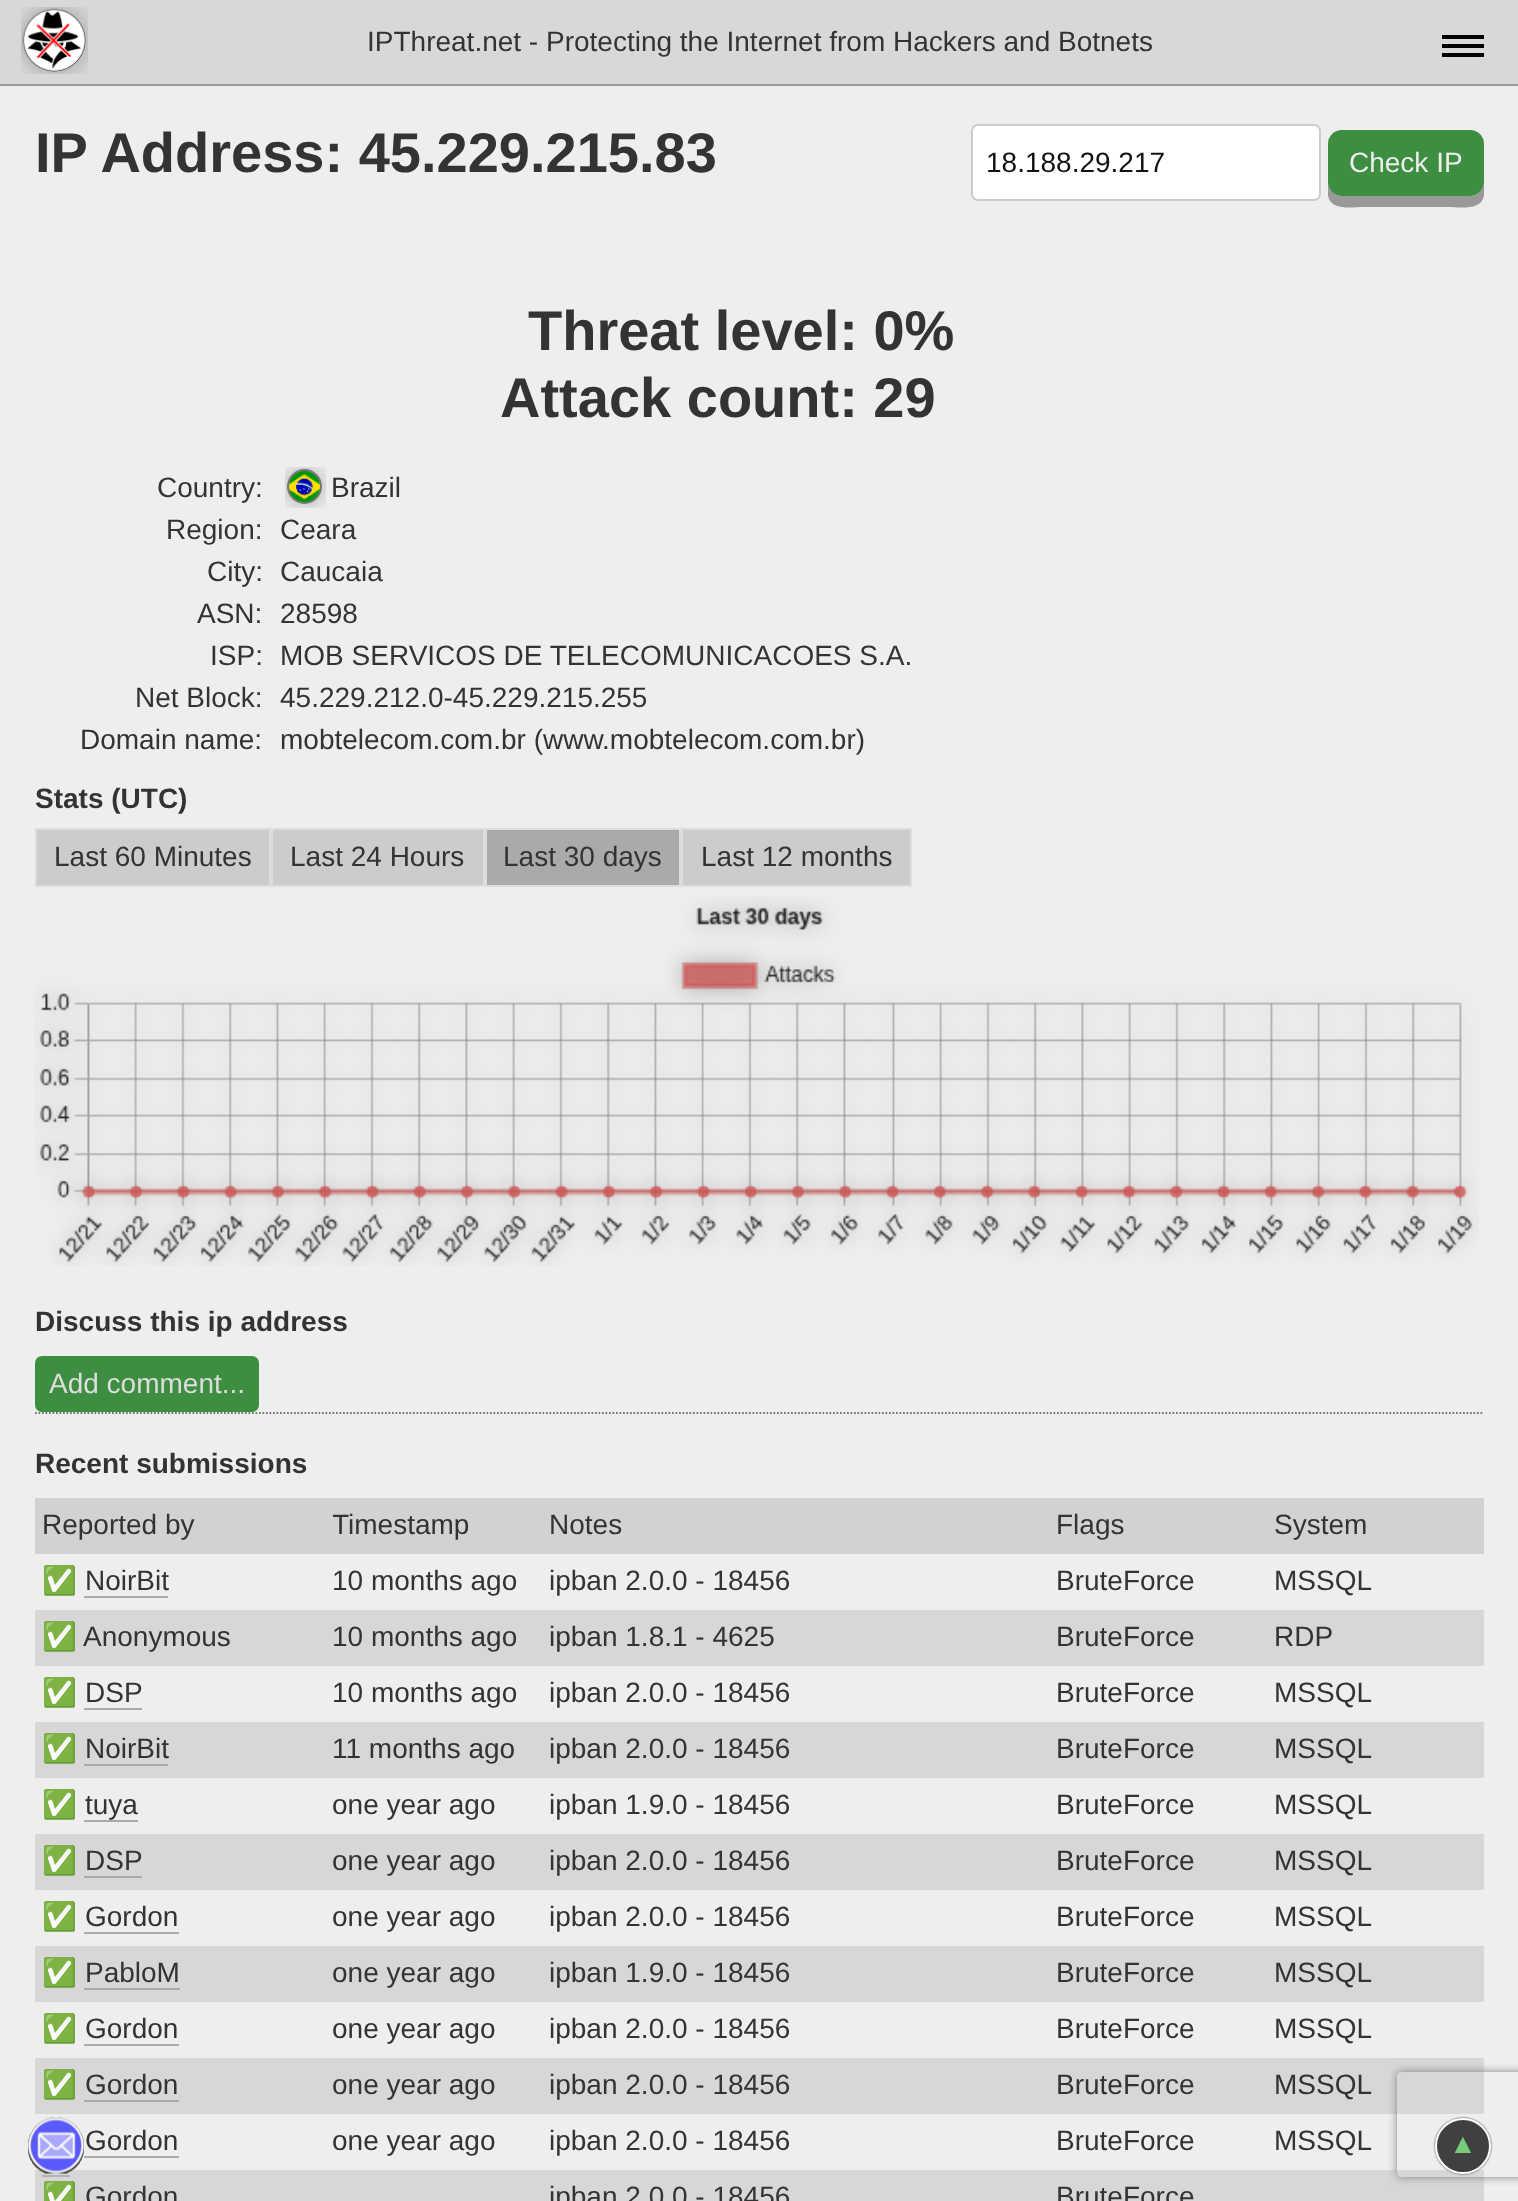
async function draw(canvas) {
  canvas.width = 1518
  canvas.height = 2201
  const ctx = canvas.getContext('2d')
  ctx.miterLimit = 4
  ctx.fontKerning = 'normal'
  async function loadImage(src) {
    const img = new Image()
    img.src = src
    await img.decode()
    return img
  }

  ctx.fillStyle = '#eee'
  ctx.fillRect(0, 0, 1518, 2201)
  ctx.fillStyle = '#d8d8d8'
  ctx.fillRect(0, 0, 1518, 84)
  ctx.fillStyle = '#999'
  ctx.fillRect(0, 84, 1518, 2)
  ctx.drawImage(await loadImage('image0.png'), 21, 7, 67, 67)
  ctx.font = '28px Liberation Sans'
  ctx.fillStyle = '#333'
  ctx.fillText('IPThreat.net - Protecting the Internet from Hackers and Botnets', 367, 51)
  ctx.fillStyle = '#000'
  ctx.fillRect(1442, 44, 42, 4)
  ctx.fillRect(1442, 35, 42, 4)
  ctx.fillRect(1442, 53, 42, 4)
  ctx.font = 'bold 56px Liberation Sans'
  ctx.fillStyle = '#333'
  ctx.fillText('IP Address: 45.229.215.83', 35, 172)
  ctx.fillStyle = '#fff'
  ctx.beginPath()
  ctx.roundRect(972, 125, 348, 75, 6)
  ctx.fill()
  ctx.strokeStyle = '#ccc'
  ctx.lineWidth = 2
  ctx.stroke()
  ctx.font = '28px Liberation Sans'
  ctx.fillStyle = '#111'
  ctx.fillText('18.188.29.217', 986, 172)
  ctx.fillStyle = '#999'
  ctx.beginPath()
  ctx.moveTo(1328, 151)
  ctx.lineTo(1328, 196)
  ctx.bezierCurveTo(1331, 211, 1353, 207, 1363, 207)
  ctx.lineTo(1449, 207)
  ctx.bezierCurveTo(1459, 207, 1481, 211, 1484, 196)
  ctx.lineTo(1484, 182)
  ctx.bezierCurveTo(1484, 190, 1478, 196, 1470, 196)
  ctx.lineTo(1342, 196)
  ctx.bezierCurveTo(1335, 196, 1328, 190, 1328, 182)
  ctx.closePath()
  ctx.fill()
  ctx.fillStyle = '#3e8e41'
  ctx.beginPath()
  ctx.roundRect(1328, 130, 156, 66, 14)
  ctx.fill()
  ctx.fillStyle = '#eee'
  ctx.fillText('Check IP', 1349, 172)
  ctx.font = 'bold 56px Liberation Sans'
  ctx.fillStyle = '#333'
  ctx.fillText('Threat level: 0%', 528, 350)
  ctx.fillText('Attack count: 29', 500, 417)
  ctx.font = '28px Liberation Sans'
  ctx.fillText('Country:', 157, 497)
  ctx.drawImage(await loadImage('image1.png'), 285, 467, 41, 41)
  ctx.beginPath()
  ctx.arc(304.5, 486.5, 16.5, 0, 2 * Math.PI)
  ctx.strokeStyle = '#777'
  ctx.stroke()
  ctx.fillText('Brazil', 331, 497)
  ctx.fillText('Region:', 166, 539)
  ctx.fillText('Ceara', 280, 539)
  ctx.fillText('City:', 207, 581)
  ctx.fillText('Caucaia', 280, 581)
  ctx.fillText('ASN:', 197, 623)
  ctx.fillText('28598', 280, 623)
  ctx.fillText('ISP:', 210, 665)
  ctx.fillText('MOB SERVICOS DE TELECOMUNICACOES S.A.', 280, 665)
  ctx.fillText('Net Block:', 135, 707)
  ctx.fillText('45.229.212.0-45.229.215.255', 280, 707)
  ctx.fillText('Domain name:', 80, 749)
  ctx.fillText('mobtelecom.com.br (www.mobtelecom.com.br)', 280, 749)
  ctx.font = 'bold 28px Liberation Sans'
  ctx.fillText('Stats (UTC)', 35, 808)
  ctx.fillStyle = '#ccc'
  ctx.beginPath()
  ctx.rect(36, 829, 234, 57)
  ctx.fill()
  ctx.strokeStyle = '#ddd'
  ctx.stroke()
  ctx.font = '28px Liberation Sans'
  ctx.fillStyle = '#333'
  ctx.fillText('Last 60 Minutes', 54, 866)
  ctx.fillStyle = '#ccc'
  ctx.beginPath()
  ctx.rect(272, 829, 212, 57)
  ctx.fill()
  ctx.stroke()
  ctx.fillStyle = '#333'
  ctx.fillText('Last 24 Hours', 290, 866)
  ctx.fillStyle = '#aaa'
  ctx.beginPath()
  ctx.rect(486, 829, 194, 57)
  ctx.fill()
  ctx.stroke()
  ctx.fillStyle = '#333'
  ctx.fillText('Last 30 days', 503, 866)
  ctx.fillStyle = '#ccc'
  ctx.beginPath()
  ctx.rect(682, 829, 229, 57)
  ctx.fill()
  ctx.stroke()
  ctx.fillStyle = '#333'
  ctx.fillText('Last 12 months', 701, 866)
  ctx.drawImage(await loadImage('image2.png'), 34, 896, 1445, 370)
  ctx.font = 'bold 28px Liberation Sans'
  ctx.fillText('Discuss this ip address', 35, 1331)
  ctx.fillStyle = '#3e8e41'
  ctx.beginPath()
  ctx.roundRect(35, 1356, 224, 56, 7)
  ctx.fill()
  ctx.font = '28px Liberation Sans'
  ctx.fillStyle = '#ddd'
  ctx.fillText('Add comment...', 49, 1393)
  ctx.beginPath()
  ctx.moveTo(35, 1413)
  ctx.lineTo(1484, 1413)
  ctx.strokeStyle = '#777'
  ctx.lineWidth = 1.8
  ctx.setLineDash([1.75, 1.75])
  ctx.stroke()
  ctx.font = 'bold 28px Liberation Sans'
  ctx.fillStyle = '#333'
  ctx.fillText('Recent submissions', 35, 1473)
  ctx.fillStyle = '#d2d2d2'
  ctx.fillRect(35, 1498, 1449, 56)
  ctx.font = '28px Liberation Sans'
  ctx.fillStyle = '#333'
  ctx.fillText('Reported by', 42, 1534)
  ctx.save()
  ctx.beginPath()
  ctx.rect(333, 1505, 203, 42)
  ctx.clip()
  ctx.fillText('Timestamp', 332, 1534)
  ctx.restore()
  ctx.fillText('Notes', 549, 1534)
  ctx.fillText('Flags', 1056, 1534)
  ctx.fillText('System', 1274, 1534)
  ctx.font = '28px Noto Color Emoji'
  ctx.fillText('✅', 42, 1590)
  ctx.font = '28px Liberation Sans'
  ctx.fillText('NoirBit', 85, 1590)
  ctx.fillStyle = '#aaa'
  ctx.fillRect(84, 1596, 84, 2)
  ctx.fillStyle = '#333'
  ctx.fillText('10 months ago', 332, 1590)
  ctx.fillText('ipban 2.0.0 - 18456', 549, 1590)
  ctx.fillText('BruteForce', 1056, 1590)
  ctx.fillText('MSSQL', 1274, 1590)
  ctx.fillStyle = '#d7d7d7'
  ctx.fillRect(35, 1610, 1449, 56)
  ctx.font = '28px Noto Color Emoji'
  ctx.fillStyle = '#333'
  ctx.fillText('✅', 42, 1646)
  ctx.font = '28px Liberation Sans'
  ctx.fillText('Anonymous', 83, 1646)
  ctx.fillText('10 months ago', 332, 1646)
  ctx.fillText('ipban 1.8.1 - 4625', 549, 1646)
  ctx.fillText('BruteForce', 1056, 1646)
  ctx.fillText('RDP', 1274, 1646)
  ctx.font = '28px Noto Color Emoji'
  ctx.fillText('✅', 42, 1702)
  ctx.font = '28px Liberation Sans'
  ctx.fillText('DSP', 85, 1702)
  ctx.fillStyle = '#aaa'
  ctx.fillRect(84, 1708, 58, 2)
  ctx.fillStyle = '#333'
  ctx.fillText('10 months ago', 332, 1702)
  ctx.fillText('ipban 2.0.0 - 18456', 549, 1702)
  ctx.fillText('BruteForce', 1056, 1702)
  ctx.fillText('MSSQL', 1274, 1702)
  ctx.fillStyle = '#d7d7d7'
  ctx.fillRect(35, 1722, 1449, 56)
  ctx.font = '28px Noto Color Emoji'
  ctx.fillStyle = '#333'
  ctx.fillText('✅', 42, 1758)
  ctx.font = '28px Liberation Sans'
  ctx.fillText('NoirBit', 85, 1758)
  ctx.fillStyle = '#aaa'
  ctx.fillRect(84, 1764, 84, 2)
  ctx.fillStyle = '#333'
  ctx.fillText('11 months ago', 332, 1758)
  ctx.fillText('ipban 2.0.0 - 18456', 549, 1758)
  ctx.fillText('BruteForce', 1056, 1758)
  ctx.fillText('MSSQL', 1274, 1758)
  ctx.font = '28px Noto Color Emoji'
  ctx.fillText('✅', 42, 1814)
  ctx.font = '28px Liberation Sans'
  ctx.fillText('tuya', 85, 1814)
  ctx.fillStyle = '#aaa'
  ctx.fillRect(84, 1820, 54, 2)
  ctx.fillStyle = '#333'
  ctx.fillText('one year ago', 332, 1814)
  ctx.fillText('ipban 1.9.0 - 18456', 549, 1814)
  ctx.fillText('BruteForce', 1056, 1814)
  ctx.fillText('MSSQL', 1274, 1814)
  ctx.fillStyle = '#d7d7d7'
  ctx.fillRect(35, 1834, 1449, 56)
  ctx.font = '28px Noto Color Emoji'
  ctx.fillStyle = '#333'
  ctx.fillText('✅', 42, 1870)
  ctx.font = '28px Liberation Sans'
  ctx.fillText('DSP', 85, 1870)
  ctx.fillStyle = '#aaa'
  ctx.fillRect(84, 1876, 58, 2)
  ctx.fillStyle = '#333'
  ctx.fillText('one year ago', 332, 1870)
  ctx.fillText('ipban 2.0.0 - 18456', 549, 1870)
  ctx.fillText('BruteForce', 1056, 1870)
  ctx.fillText('MSSQL', 1274, 1870)
  ctx.font = '28px Noto Color Emoji'
  ctx.fillText('✅', 42, 1926)
  ctx.font = '28px Liberation Sans'
  ctx.fillText('Gordon', 85, 1926)
  ctx.fillStyle = '#aaa'
  ctx.fillRect(84, 1932, 95, 2)
  ctx.fillStyle = '#333'
  ctx.fillText('one year ago', 332, 1926)
  ctx.fillText('ipban 2.0.0 - 18456', 549, 1926)
  ctx.fillText('BruteForce', 1056, 1926)
  ctx.fillText('MSSQL', 1274, 1926)
  ctx.fillStyle = '#d7d7d7'
  ctx.fillRect(35, 1946, 1449, 56)
  ctx.font = '28px Noto Color Emoji'
  ctx.fillStyle = '#333'
  ctx.fillText('✅', 42, 1982)
  ctx.font = '28px Liberation Sans'
  ctx.fillText('PabloM', 85, 1982)
  ctx.fillStyle = '#aaa'
  ctx.fillRect(84, 1988, 96, 2)
  ctx.fillStyle = '#333'
  ctx.fillText('one year ago', 332, 1982)
  ctx.fillText('ipban 1.9.0 - 18456', 549, 1982)
  ctx.fillText('BruteForce', 1056, 1982)
  ctx.fillText('MSSQL', 1274, 1982)
  ctx.font = '28px Noto Color Emoji'
  ctx.fillText('✅', 42, 2038)
  ctx.font = '28px Liberation Sans'
  ctx.fillText('Gordon', 85, 2038)
  ctx.fillStyle = '#aaa'
  ctx.fillRect(84, 2044, 95, 2)
  ctx.fillStyle = '#333'
  ctx.fillText('one year ago', 332, 2038)
  ctx.fillText('ipban 2.0.0 - 18456', 549, 2038)
  ctx.fillText('BruteForce', 1056, 2038)
  ctx.fillText('MSSQL', 1274, 2038)
  ctx.fillStyle = '#d7d7d7'
  ctx.fillRect(35, 2058, 1449, 56)
  ctx.font = '28px Noto Color Emoji'
  ctx.fillStyle = '#333'
  ctx.fillText('✅', 42, 2094)
  ctx.font = '28px Liberation Sans'
  ctx.fillText('Gordon', 85, 2094)
  ctx.fillStyle = '#aaa'
  ctx.fillRect(84, 2100, 95, 2)
  ctx.fillStyle = '#333'
  ctx.fillText('one year ago', 332, 2094)
  ctx.fillText('ipban 2.0.0 - 18456', 549, 2094)
  ctx.fillText('BruteForce', 1056, 2094)
  ctx.fillText('MSSQL', 1274, 2094)
  ctx.fillText('Gordon', 85, 2150)
  ctx.fillStyle = '#aaa'
  ctx.fillRect(84, 2156, 95, 2)
  ctx.fillStyle = '#333'
  ctx.fillText('one year ago', 332, 2150)
  ctx.fillText('ipban 2.0.0 - 18456', 549, 2150)
  ctx.fillText('BruteForce', 1056, 2150)
  ctx.fillText('MSSQL', 1274, 2150)
  ctx.fillStyle = '#d7d7d7'
  ctx.fillRect(35, 2170, 1449, 31)
  ctx.font = '28px Noto Color Emoji'
  ctx.fillStyle = '#333'
  ctx.fillText('✅', 42, 2206)
  ctx.font = '28px Liberation Sans'
  ctx.fillText('Gordon', 85, 2206)
  ctx.fillText('ipban 2.0.0 - 18456', 549, 2206)
  ctx.fillText('BruteForce', 1056, 2206)
  ctx.fillStyle = '#b3b3b3'
  ctx.fillRect(42, 2175, 28, 2)
  ctx.drawImage(await loadImage('image3.png'), 28, 2117, 56, 57)
  ctx.fillStyle = '#141414cc'
  ctx.filter = 'blur(1px)'
  ctx.beginPath()
  ctx.roundRect(1435, 2118, 56, 56, 28)
  ctx.fill()
  ctx.filter = 'none'
  ctx.beginPath()
  ctx.arc(1463, 2146, 27, 0, 2 * Math.PI)
  ctx.strokeStyle = '#fff'
  ctx.lineWidth = 2
  ctx.setLineDash([])
  ctx.stroke()
  ctx.save()
  ctx.beginPath()
  ctx.moveTo(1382, 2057)
  ctx.lineTo(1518, 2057)
  ctx.lineTo(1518, 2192)
  ctx.lineTo(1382, 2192)
  ctx.closePath()
  ctx.moveTo(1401, 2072)
  ctx.lineTo(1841, 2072)
  ctx.bezierCurveTo(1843, 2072, 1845, 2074, 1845, 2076)
  ctx.lineTo(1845, 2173)
  ctx.bezierCurveTo(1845, 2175, 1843, 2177, 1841, 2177)
  ctx.lineTo(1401, 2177)
  ctx.bezierCurveTo(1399, 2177, 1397, 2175, 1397, 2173)
  ctx.lineTo(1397, 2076)
  ctx.bezierCurveTo(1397, 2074, 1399, 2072, 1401, 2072)
  ctx.closePath()
  ctx.clip('evenodd')
  ctx.fillStyle = '#808080'
  ctx.filter = 'blur(4.5px)'
  ctx.beginPath()
  ctx.roundRect(1397, 2072, 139, 105, 4)
  ctx.fill()
  ctx.filter = 'none'
  ctx.restore()
  ctx.fillStyle = '#7c7'
  ctx.fillText('▲', 1449, 2153)
}

draw(document.querySelector('canvas'))
